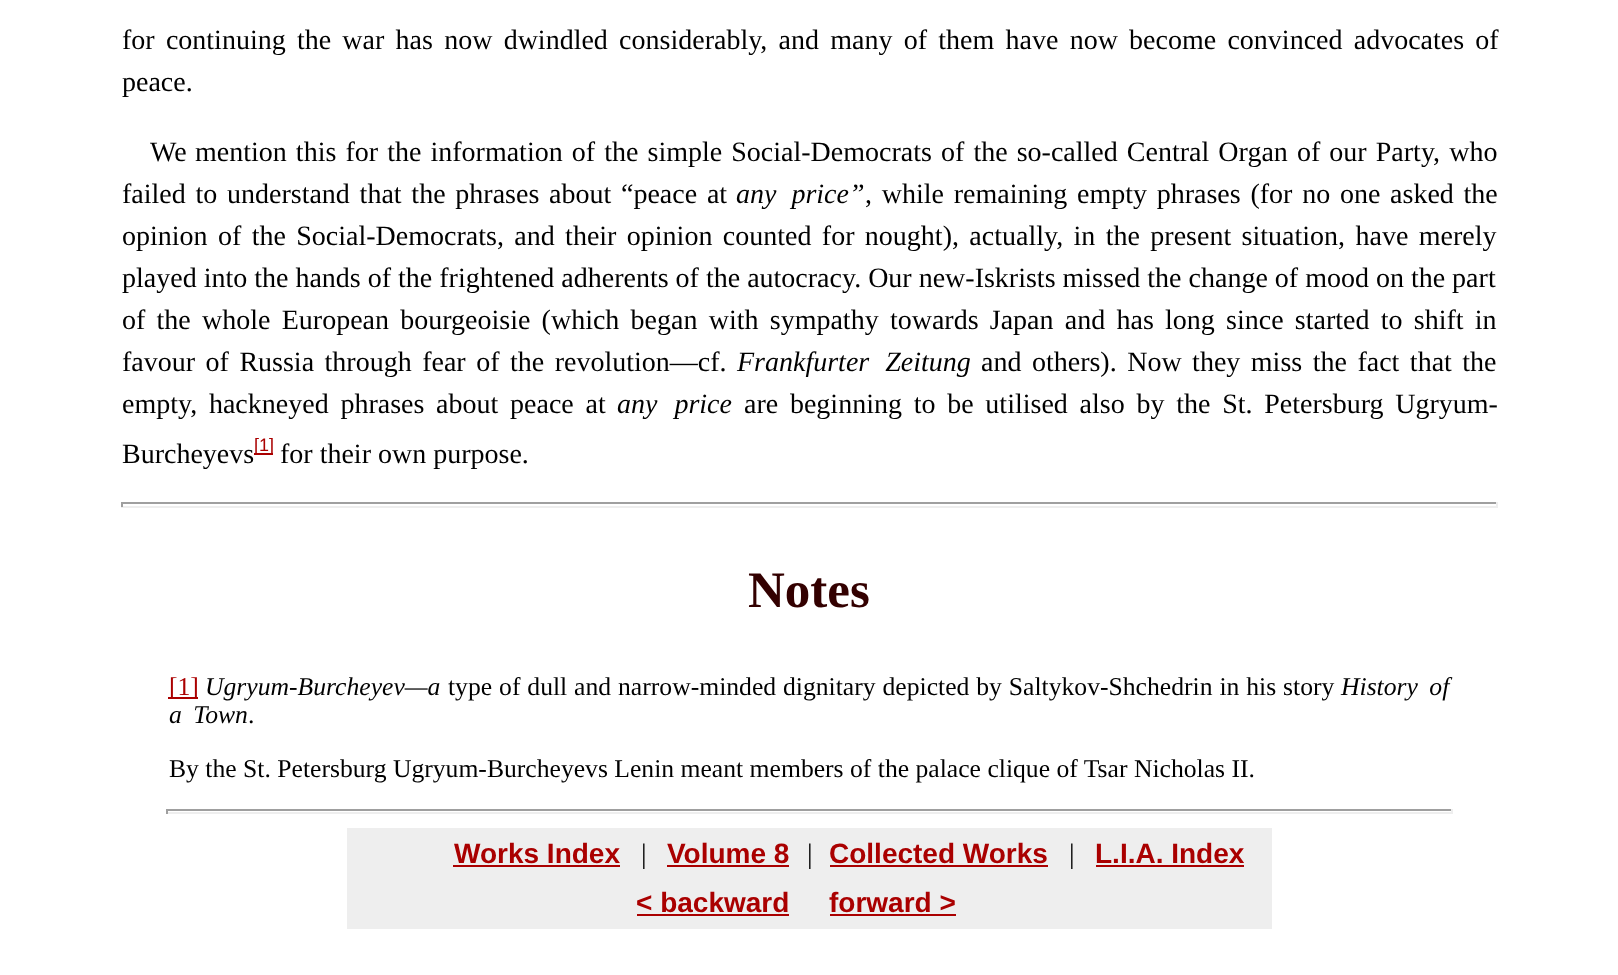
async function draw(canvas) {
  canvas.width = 1618
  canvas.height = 975
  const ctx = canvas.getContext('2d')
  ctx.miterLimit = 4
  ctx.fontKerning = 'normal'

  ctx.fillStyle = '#fff'
  ctx.fillRect(0, 0, 1618, 975)
  ctx.wordSpacing = '4.25px'
  ctx.font = '28px Liberation Serif'
  ctx.fillStyle = '#000'
  ctx.fillText('for continuing the war has now dwindled considerably, and many of them have now become convinced advocates of', 122, 49)
  ctx.wordSpacing = '0px'
  ctx.fillText('peace.', 122, 91)
  ctx.fillText('We', 150, 161)
  ctx.wordSpacing = '2.1px'
  ctx.fillText('mention this for the information of the simple Social-Democrats of the so-called Central Organ of our Party, who', 195, 161)
  ctx.wordSpacing = '2.75px'
  ctx.fillText('failed to understand that the phrases about “peace at', 122, 203)
  ctx.wordSpacing = '8px'
  ctx.font = 'italic 28px Liberation Serif'
  ctx.fillText('any price”', 736, 203)
  ctx.wordSpacing = '2.75px'
  ctx.font = '28px Liberation Serif'
  ctx.fillText(', while remaining empty phrases (for no one asked the', 865, 203)
  ctx.wordSpacing = '3.4px'
  ctx.fillText('opinion of the Social-Democrats, and their opinion counted for nought), actually, in the present situation, have merely', 122, 245)
  ctx.wordSpacing = '0px'
  ctx.fillText('played into the hands of the frightened adherents of the autocracy. Our new-Iskrists missed the change of mood on the part', 122, 287)
  ctx.wordSpacing = '4.25px'
  ctx.fillText('of the whole European bourgeoisie (which began with sympathy towards Japan and has long since started to shift in', 122, 329)
  ctx.wordSpacing = '3.5px'
  ctx.fillText('favour of Russia through fear of the revolution—cf.', 122, 371)
  ctx.wordSpacing = '9px'
  ctx.font = 'italic 28px Liberation Serif'
  ctx.fillText('Frankfurter Zeitung', 737, 371)
  ctx.wordSpacing = '3.5px'
  ctx.font = '28px Liberation Serif'
  ctx.fillText('and others). Now they miss the fact that the', 981, 371)
  ctx.wordSpacing = '4.75px'
  ctx.fillText('empty, hackneyed phrases about peace at', 122, 413)
  ctx.wordSpacing = '10px'
  ctx.font = 'italic 28px Liberation Serif'
  ctx.fillText('any price', 617, 413)
  ctx.wordSpacing = '4.75px'
  ctx.font = '28px Liberation Serif'
  ctx.fillText('are beginning to be utilised also by the St. Petersburg Ugryum-', 744, 413)
  ctx.wordSpacing = '0px'
  ctx.fillText('Burcheyevs', 122, 463)
  ctx.fillStyle = '#a00'
  ctx.fillRect(254, 453, 19, 2)
  ctx.font = '18px Liberation Sans'
  ctx.fillText('[1]', 254, 451)
  ctx.font = '28px Liberation Serif'
  ctx.fillStyle = '#000'
  ctx.fillText('for their own purpose.', 280, 463)
  ctx.fillStyle = '#9f9f9f'
  ctx.fillRect(121, 502, 1377, 2)
  ctx.fillStyle = '#eee'
  ctx.fillRect(1496, 502, 2, 5)
  ctx.fillRect(121, 506, 1377, 2)
  ctx.fillStyle = '#9f9f9f'
  ctx.fillRect(121, 502, 2, 5)
  ctx.font = 'bold 51px Liberation Serif'
  ctx.fillStyle = '#300'
  ctx.fillText('Notes', 748, 607)
  ctx.fillStyle = '#a00'
  ctx.fillRect(168, 697, 30, 2)
  ctx.font = '25.65px Liberation Serif'
  ctx.fillText('[1]', 169, 695)
  ctx.font = 'italic 25.65px Liberation Serif'
  ctx.fillStyle = '#000'
  ctx.fillText('Ugryum-Burcheyev—a', 205, 695)
  ctx.wordSpacing = '0.5px'
  ctx.font = '25.65px Liberation Serif'
  ctx.fillText('type of dull and narrow-minded dignitary depicted by Saltykov-Shchedrin in his story', 448, 695)
  ctx.wordSpacing = '5px'
  ctx.font = 'italic 25.65px Liberation Serif'
  ctx.fillText('History of', 1341, 695)
  ctx.fillText('a Town', 169, 723)
  ctx.wordSpacing = '0px'
  ctx.font = '25.65px Liberation Serif'
  ctx.fillText('.', 248, 723)
  ctx.fillText('By the St. Petersburg Ugryum-Burcheyevs Lenin meant members of the palace clique of Tsar Nicholas II.', 169, 777)
  ctx.fillStyle = '#9f9f9f'
  ctx.fillRect(166, 809, 1287, 2)
  ctx.fillStyle = '#eee'
  ctx.fillRect(1451, 809, 2, 5)
  ctx.fillRect(166, 812, 1287, 2)
  ctx.fillStyle = '#9f9f9f'
  ctx.fillRect(166, 809, 2, 5)
  ctx.fillStyle = '#eee'
  ctx.fillRect(347, 828, 925, 101)
  ctx.font = 'bold 28px Liberation Sans'
  ctx.fillStyle = '#a00'
  ctx.fillText('Works Index', 454, 863)
  ctx.fillRect(453, 865, 167, 2)
  ctx.font = '28px Liberation Serif'
  ctx.fillStyle = '#000'
  ctx.fillText('|', 641, 863)
  ctx.font = 'bold 28px Liberation Sans'
  ctx.fillStyle = '#a00'
  ctx.fillText('Volume 8', 667, 863)
  ctx.fillRect(667, 865, 122, 2)
  ctx.font = '28px Liberation Serif'
  ctx.fillStyle = '#000'
  ctx.fillText('|', 807, 863)
  ctx.font = 'bold 28px Liberation Sans'
  ctx.fillStyle = '#a00'
  ctx.fillText('Collected Works', 829, 863)
  ctx.fillRect(830, 865, 218, 2)
  ctx.font = '28px Liberation Serif'
  ctx.fillStyle = '#000'
  ctx.fillText('|', 1069, 863)
  ctx.font = 'bold 28px Liberation Sans'
  ctx.fillStyle = '#a00'
  ctx.fillText('L.I.A. Index', 1095, 863)
  ctx.fillRect(1096, 865, 148, 2)
  ctx.fillText('< backward', 636, 912)
  ctx.fillRect(637, 914, 152, 2)
  ctx.fillText('forward >', 829, 912)
  ctx.fillRect(830, 914, 126, 2)
}

draw(document.querySelector('canvas'))
